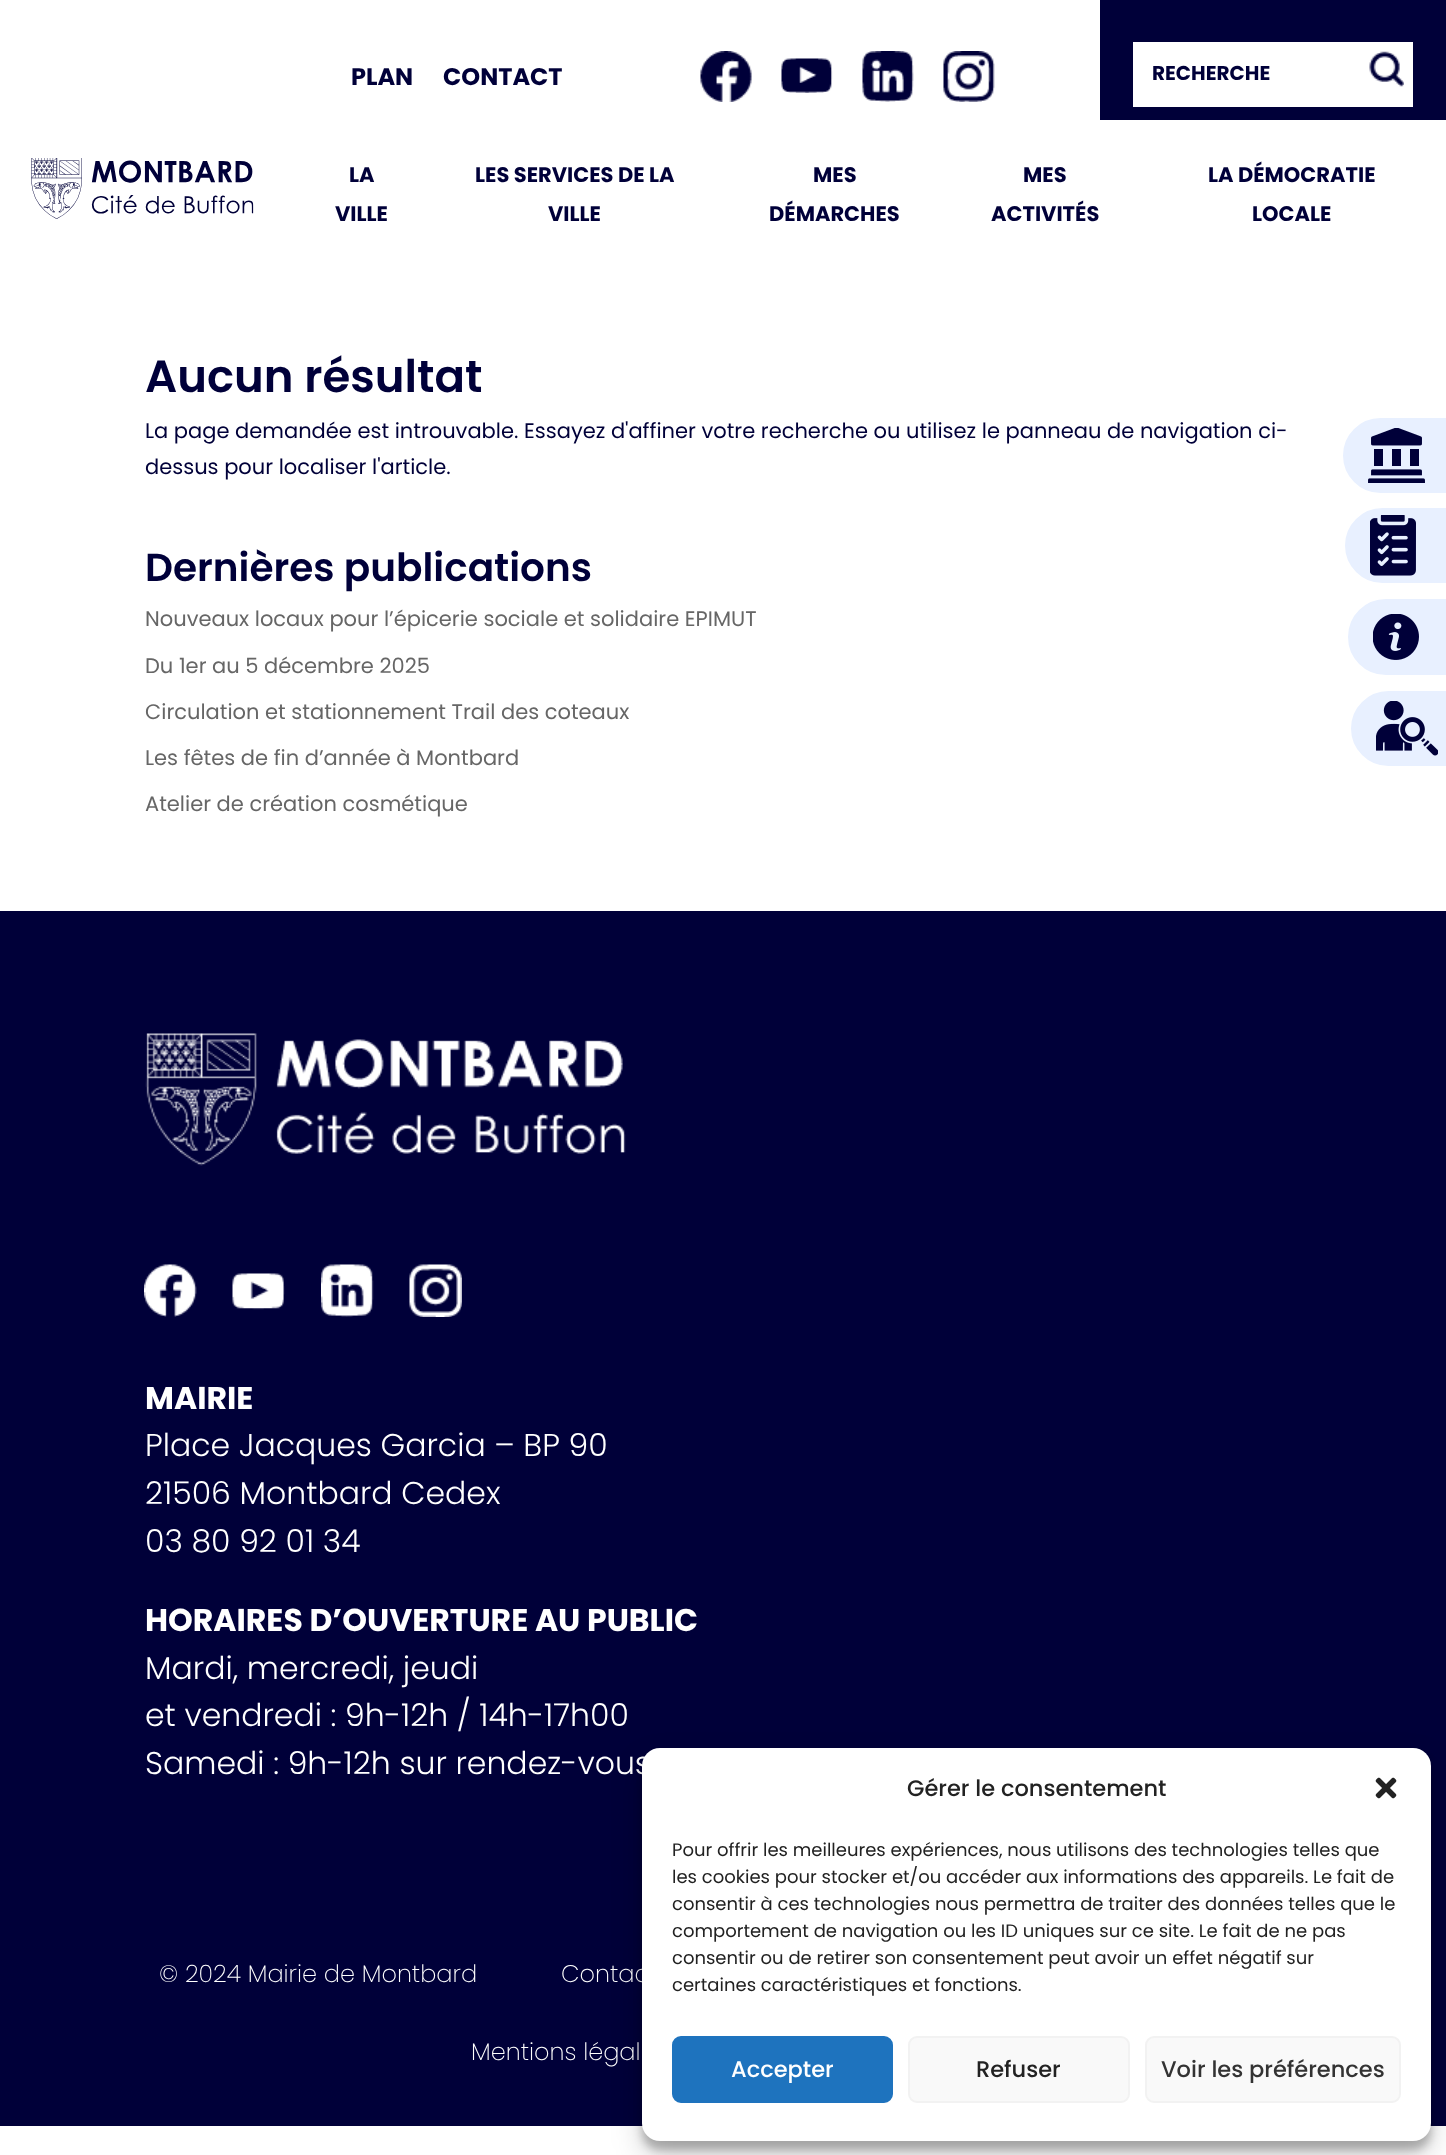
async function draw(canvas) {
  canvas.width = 1446
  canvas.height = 2155
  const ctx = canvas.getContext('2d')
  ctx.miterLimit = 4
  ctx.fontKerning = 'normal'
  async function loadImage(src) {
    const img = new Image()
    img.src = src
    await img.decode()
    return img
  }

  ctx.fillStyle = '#fff'
  ctx.fillRect(0, 0, 1446, 2155)
  ctx.font = 'bold 24px Poppins'
  ctx.fillStyle = '#000039'
  ctx.fillText('PLAN', 351, 85)
  ctx.fillText('CONTACT', 443, 85)
  ctx.drawImage(await loadImage('image0.png'), 700, 51, 52, 51)
  ctx.drawImage(await loadImage('image1.png'), 781, 58, 52, 35)
  ctx.drawImage(await loadImage('image2.png'), 862, 51, 52, 51)
  ctx.drawImage(await loadImage('image3.png'), 943, 51, 52, 51)
  ctx.fillRect(1100, 0, 346, 120)
  ctx.fillStyle = '#fff'
  ctx.fillRect(1133, 42, 280, 65)
  ctx.font = 'bold 20px Poppins'
  ctx.fillStyle = '#000039'
  ctx.fillText('RECHERCHE', 1152, 80)
  ctx.drawImage(await loadImage('image4.png'), 1369, 51, 35, 36)
  ctx.drawImage(await loadImage('image5.png'), 31, 158, 223, 61)
  ctx.font = 'bold 21px Poppins'
  ctx.fillText('LA', 349, 182)
  ctx.fillText('VILLE', 335, 221)
  ctx.fillText('LES SERVICES DE LA', 475, 182)
  ctx.fillText('VILLE', 548, 221)
  ctx.fillText('MES', 813, 182)
  ctx.fillText('DÉMARCHES', 769, 221)
  ctx.fillText('MES', 1023, 182)
  ctx.fillText('ACTIVITÉS', 991, 221)
  ctx.fillText('LA DÉMOCRATIE', 1208, 182)
  ctx.fillText('LOCALE', 1252, 221)
  ctx.fillStyle = '#e8f0ff'
  ctx.beginPath()
  ctx.moveTo(1380.5, 415.5)
  ctx.lineTo(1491.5, 415.5)
  ctx.lineTo(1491.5, 495.5)
  ctx.lineTo(1380.5, 495.5)
  ctx.bezierCurveTo(1358.5, 495.5, 1340.5, 477.5, 1340.5, 455.5)
  ctx.bezierCurveTo(1340.5, 433.5, 1358.5, 415.5, 1380.5, 415.5)
  ctx.closePath()
  ctx.fill()
  ctx.strokeStyle = '#fff'
  ctx.lineWidth = 5
  ctx.stroke()
  ctx.drawImage(await loadImage('image6.png'), 1368, 428, 57, 55)
  ctx.beginPath()
  ctx.moveTo(1382.5, 505.5)
  ctx.lineTo(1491.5, 505.5)
  ctx.lineTo(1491.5, 585.5)
  ctx.lineTo(1382.5, 585.5)
  ctx.bezierCurveTo(1360.5, 585.5, 1342.5, 567.5, 1342.5, 545.5)
  ctx.bezierCurveTo(1342.5, 523.5, 1360.5, 505.5, 1382.5, 505.5)
  ctx.closePath()
  ctx.fill()
  ctx.stroke()
  ctx.drawImage(await loadImage('image7.png'), 1370, 515, 46, 61)
  ctx.beginPath()
  ctx.moveTo(1386, 596.5)
  ctx.lineTo(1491.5, 596.5)
  ctx.lineTo(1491.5, 677.5)
  ctx.lineTo(1386, 677.5)
  ctx.bezierCurveTo(1363.5, 677.5, 1345.5, 659.5, 1345.5, 637)
  ctx.bezierCurveTo(1345.5, 614.5, 1363.5, 596.5, 1386, 596.5)
  ctx.closePath()
  ctx.fill()
  ctx.stroke()
  ctx.drawImage(await loadImage('image8.png'), 1373, 614, 46, 46)
  ctx.beginPath()
  ctx.moveTo(1388.5, 688.5)
  ctx.lineTo(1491.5, 688.5)
  ctx.lineTo(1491.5, 768.5)
  ctx.lineTo(1388.5, 768.5)
  ctx.bezierCurveTo(1366.5, 768.5, 1348.5, 750.5, 1348.5, 728.5)
  ctx.bezierCurveTo(1348.5, 706.5, 1366.5, 688.5, 1388.5, 688.5)
  ctx.closePath()
  ctx.fill()
  ctx.stroke()
  ctx.drawImage(await loadImage('image9.png'), 1376, 701, 62, 55)
  ctx.font = '600 45px Poppins'
  ctx.fillStyle = '#000039'
  ctx.fillText('Aucun résultat', 145, 392)
  ctx.font = '21px Poppins'
  ctx.fillText('La page demandée est introuvable. Essayez d\'affiner votre recherche ou utilisez le panneau de navigation ci-', 145, 438)
  ctx.fillText('dessus pour localiser l\'article.', 145, 474)
  ctx.font = '600 39px Poppins'
  ctx.fillText('Dernières publications', 145, 581)
  ctx.font = '21px Poppins'
  ctx.fillStyle = '#666'
  ctx.fillText('Nouveaux locaux pour l’épicerie sociale et solidaire EPIMUT', 145, 626)
  ctx.fillText('Du 1er au 5 décembre 2025', 145, 673)
  ctx.fillText('Circulation et stationnement Trail des coteaux', 145, 719)
  ctx.fillText('Les fêtes de fin d’année à Montbard', 145, 765)
  ctx.fillText('Atelier de création cosmétique', 145, 811)
  ctx.fillStyle = '#000039'
  ctx.fillRect(0, 911, 1446, 1215)
  ctx.drawImage(await loadImage('image10.png'), 145, 1033, 481, 133)
  ctx.drawImage(await loadImage('image11.png'), 144, 1264, 53, 53)
  ctx.drawImage(await loadImage('image12.png'), 232, 1273, 53, 37)
  ctx.drawImage(await loadImage('image13.png'), 321, 1264, 53, 53)
  ctx.drawImage(await loadImage('image14.png'), 409, 1264, 53, 53)
  ctx.font = 'bold 31.5px Poppins'
  ctx.fillStyle = '#fff'
  ctx.fillText('MAIRIE', 145, 1409)
  ctx.font = '300 31.5px Poppins'
  ctx.fillText('Place Jacques Garcia – BP 90', 145, 1456)
  ctx.fillText('21506 Montbard Cedex', 145, 1504)
  ctx.fillText('03 80 92 01 34', 145, 1552)
  ctx.font = 'bold 31.5px Poppins'
  ctx.fillText('HORAIRES D’OUVERTURE AU PUBLIC', 145, 1631)
  ctx.font = '300 31.5px Poppins'
  ctx.fillText('Mardi, mercredi, jeudi', 145, 1679)
  ctx.fillText('et vendredi : 9h-12h / 14h-17h00', 145, 1726)
  ctx.fillText('Samedi : 9h-12h sur rendez-vous', 145, 1774)
  ctx.font = '200 24px Poppins'
  ctx.fillText('© 2024 Mairie de Montbard', 159, 1982)
  ctx.fillText('Contac', 561, 1982)
  ctx.fillText('Mentions légal', 471, 2060)
  ctx.fillStyle = '#0000003b'
  ctx.filter = 'blur(4.5px)'
  ctx.beginPath()
  ctx.roundRect(642, 1757, 789, 393, 18)
  ctx.fill()
  ctx.filter = 'none'
  ctx.fillStyle = '#00000030'
  ctx.filter = 'blur(15px)'
  ctx.beginPath()
  ctx.roundRect(642, 1763, 789, 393, 18)
  ctx.fill()
  ctx.filter = 'none'
  ctx.fillStyle = '#fff'
  ctx.beginPath()
  ctx.roundRect(642, 1748, 789, 393, 18)
  ctx.fill()
  ctx.font = '500 22.5px Poppins'
  ctx.fillStyle = '#222'
  ctx.fillText('Gérer le consentement', 907, 1796)
  ctx.drawImage(await loadImage('image15.png'), 1375, 1777, 22, 22)
  ctx.font = '18px Poppins'
  ctx.fillText('Pour offrir les meilleures expériences, nous utilisons des technologies telles que', 672, 1856)
  ctx.fillText('les cookies pour stocker et/ou accéder aux informations des appareils. Le fait de', 672, 1883)
  ctx.fillText('consentir à ces technologies nous permettra de traiter des données telles que le', 672, 1910)
  ctx.fillText('comportement de navigation ou les ID uniques sur ce site. Le fait de ne pas', 672, 1937)
  ctx.fillText('consentir ou de retirer son consentement peut avoir un effet négatif sur', 672, 1964)
  ctx.fillText('certaines caractéristiques et fonctions.', 672, 1991)
  ctx.fillStyle = '#1e73be'
  ctx.beginPath()
  ctx.roundRect(673, 2037, 219, 65, 8)
  ctx.fill()
  ctx.strokeStyle = '#1e73be'
  ctx.lineWidth = 2
  ctx.stroke()
  ctx.font = '500 22.5px Poppins'
  ctx.fillStyle = '#fff'
  ctx.fillText('Accepter', 731, 2077)
  ctx.fillStyle = '#f9f9f9'
  ctx.beginPath()
  ctx.roundRect(909, 2037, 220, 65, 8)
  ctx.fill()
  ctx.strokeStyle = '#f2f2f2'
  ctx.stroke()
  ctx.fillStyle = '#222'
  ctx.fillText('Refuser', 976, 2077)
  ctx.fillStyle = '#f9f9f9'
  ctx.beginPath()
  ctx.roundRect(1146, 2037, 254, 65, 8)
  ctx.fill()
  ctx.stroke()
  ctx.fillStyle = '#333'
  ctx.fillText('Voir les préférences', 1161, 2077)
}

draw(document.querySelector('canvas'))
